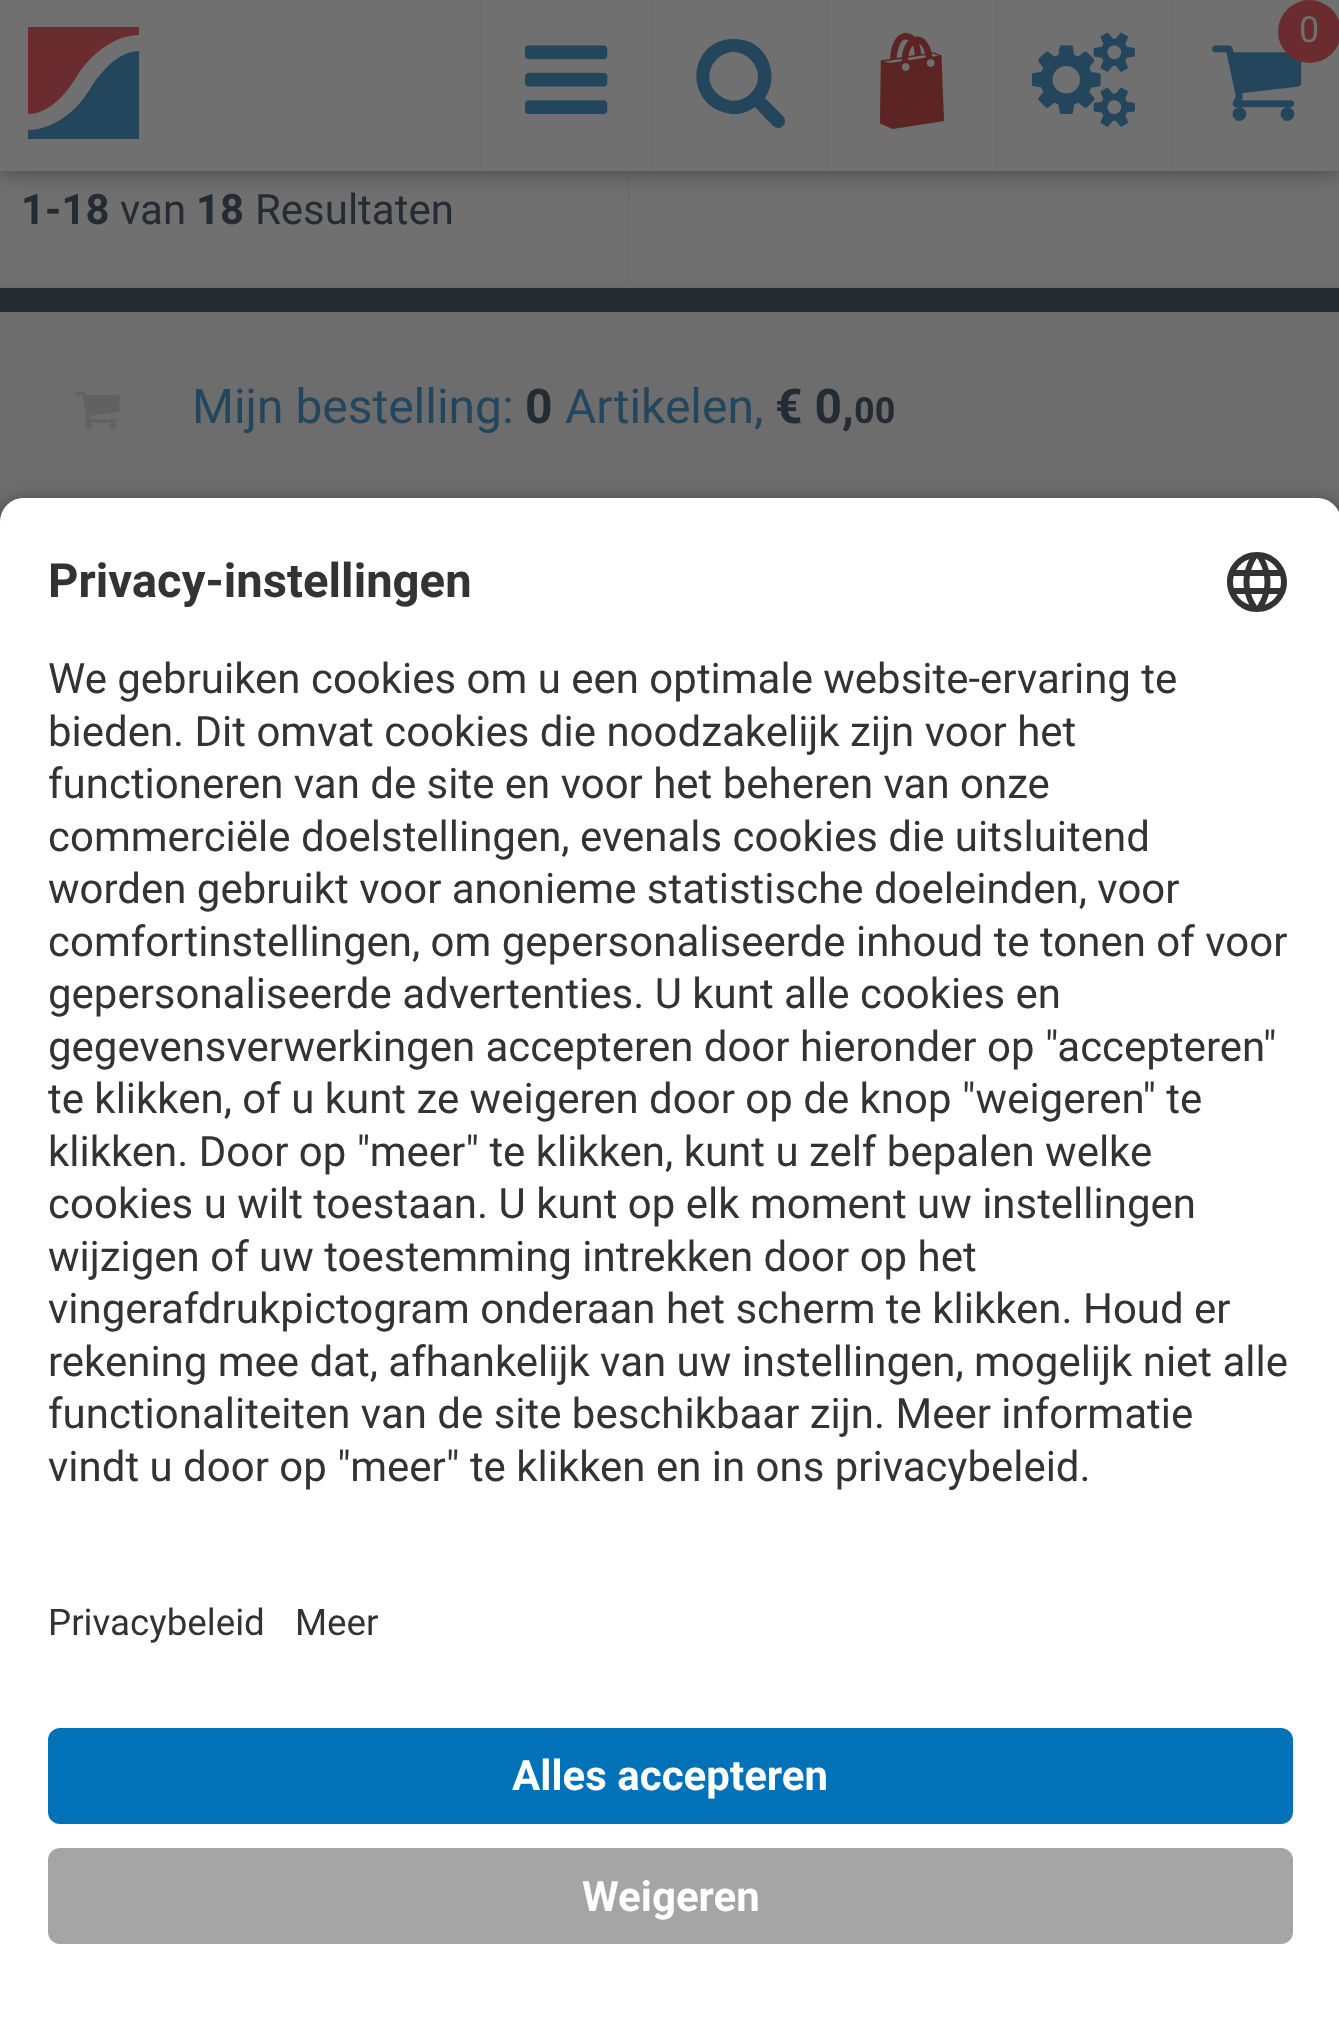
async function draw(canvas) {
  canvas.width = 1339
  canvas.height = 2027
  const ctx = canvas.getContext('2d')
  ctx.miterLimit = 4
  ctx.fontKerning = 'normal'
  async function loadImage(src) {
    const img = new Image()
    img.src = src
    await img.decode()
    return img
  }

  ctx.fillStyle = '#6d6d6d'
  ctx.fillRect(0, 0, 1339, 2027)
  ctx.fillStyle = '#707070'
  ctx.fillRect(0, 171, 1339, 111)
  ctx.fillStyle = '#6d6d6d'
  ctx.fillRect(627, 171, 3, 111)
  ctx.fillStyle = '#424242'
  ctx.filter = 'blur(12px)'
  ctx.beginPath()
  ctx.rect(0, 0, 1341, 171)
  ctx.fill()
  ctx.filter = 'none'
  ctx.fillStyle = '#707070'
  ctx.fillRect(0, 0, 1339, 171)
  ctx.fillStyle = '#6b2c2f'
  ctx.beginPath()
  ctx.moveTo(139, 35)
  ctx.lineTo(139, 27)
  ctx.lineTo(28, 27)
  ctx.lineTo(28, 114)
  ctx.bezierCurveTo(43, 114, 60, 104, 77, 76)
  ctx.bezierCurveTo(94, 49, 119, 35, 139, 35)
  ctx.closePath()
  ctx.fill('evenodd')
  ctx.fillStyle = '#24465c'
  ctx.beginPath()
  ctx.moveTo(28, 130)
  ctx.lineTo(28, 139)
  ctx.lineTo(139, 139)
  ctx.lineTo(139, 51)
  ctx.bezierCurveTo(124, 51, 107, 62, 90, 89)
  ctx.bezierCurveTo(73, 117, 48, 130, 28, 130)
  ctx.closePath()
  ctx.fill('evenodd')
  ctx.fillStyle = '#6d6d6d'
  ctx.fillRect(480, 0, 3, 171)
  ctx.drawImage(await loadImage('image0.png'), 525, 45, 83, 69)
  ctx.fillRect(651, 0, 3, 171)
  ctx.fillStyle = '#24465c'
  ctx.beginPath()
  ctx.moveTo(751, 93)
  ctx.bezierCurveTo(773, 71, 739, 37, 717, 59)
  ctx.bezierCurveTo(694, 82, 728, 116, 751, 93)
  ctx.closePath()
  ctx.moveTo(785, 121)
  ctx.bezierCurveTo(785, 123, 784, 125, 782, 127)
  ctx.bezierCurveTo(776, 131, 771, 123, 767, 120)
  ctx.lineTo(755, 107)
  ctx.bezierCurveTo(746, 114, 734, 116, 723, 112)
  ctx.bezierCurveTo(687, 101, 688, 49, 724, 40)
  ctx.bezierCurveTo(733, 38, 742, 39, 750, 42)
  ctx.bezierCurveTo(771, 52, 778, 79, 765, 98)
  ctx.lineTo(783, 116)
  ctx.bezierCurveTo(784, 117, 785, 119, 785, 121)
  ctx.closePath()
  ctx.fill()
  ctx.fillStyle = '#6d6d6d'
  ctx.fillRect(825, 0, 3, 171)
  ctx.drawImage(await loadImage('image1.png'), 879, 33, 66, 96)
  ctx.fillRect(996, 0, 3, 171)
  ctx.drawImage(await loadImage('image2.png'), 1032, 32, 103, 95)
  ctx.fillRect(1170, 0, 3, 171)
  ctx.drawImage(await loadImage('image3.png'), 1212, 45, 90, 76)
  ctx.fillStyle = '#6b2c2f'
  ctx.beginPath()
  ctx.arc(1309.5, 31.5, 31.5, 0, 2 * Math.PI)
  ctx.fill()
  ctx.font = '36px Roboto'
  ctx.fillStyle = '#707070'
  ctx.fillText('0', 1299, 42)
  ctx.font = 'bold 42px Roboto'
  ctx.fillStyle = '#252b33'
  ctx.fillText('1-18', 21, 224)
  ctx.font = '42px Roboto'
  ctx.fillText('van', 120, 224)
  ctx.font = 'bold 42px Roboto'
  ctx.fillText('18', 196, 224)
  ctx.font = '42px Roboto'
  ctx.fillText('Resultaten', 255, 224)
  ctx.fillRect(0, 288, 1339, 24)
  ctx.drawImage(await loadImage('image4.png'), 75, 391, 45, 39)
  ctx.font = '48px Roboto'
  ctx.fillStyle = '#24465c'
  ctx.fillText('Mijn bestelling:', 192, 423)
  ctx.font = 'bold 48px Roboto'
  ctx.fillStyle = '#252b33'
  ctx.fillText('0', 525, 423)
  ctx.font = '48px Roboto'
  ctx.fillStyle = '#24465c'
  ctx.fillText('Artikelen,', 565, 423)
  ctx.font = 'bold 48px Roboto'
  ctx.fillStyle = '#252b33'
  ctx.fillText('€ 0,', 775, 423)
  ctx.font = 'bold 36px Roboto'
  ctx.fillText('00', 854, 423)
  ctx.fillStyle = '#000000cc'
  ctx.filter = 'blur(10.5px)'
  ctx.beginPath()
  ctx.roundRect(0, 507, 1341, 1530, 24)
  ctx.fill()
  ctx.filter = 'none'
  ctx.fillStyle = '#fff'
  ctx.beginPath()
  ctx.moveTo(24, 498)
  ctx.lineTo(1317, 498)
  ctx.bezierCurveTo(1330.5, 498, 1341, 508.5, 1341, 522)
  ctx.lineTo(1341, 1554)
  ctx.lineTo(0, 1554)
  ctx.lineTo(0, 522)
  ctx.bezierCurveTo(0, 508.5, 10.5, 498, 24, 498)
  ctx.closePath()
  ctx.fill()
  ctx.font = 'bold 47.25px Roboto'
  ctx.fillStyle = '#333'
  ctx.fillText('Privacy-instellingen', 48, 597)
  ctx.drawImage(await loadImage('image5.png'), 1227, 552, 60, 60)
  ctx.font = '42px Roboto'
  ctx.fillText('We gebruiken cookies om u een optimale website-ervaring te', 48, 693)
  ctx.fillText('bieden. Dit omvat cookies die noodzakelijk zijn voor het', 48, 746)
  ctx.fillText('functioneren van de site en voor het beheren van onze', 48, 798)
  ctx.fillText('commerciële doelstellingen, evenals cookies die uitsluitend', 48, 851)
  ctx.fillText('worden gebruikt voor anonieme statistische doeleinden, voor', 48, 903)
  ctx.fillText('comfortinstellingen, om gepersonaliseerde inhoud te tonen of voor', 48, 956)
  ctx.fillText('gepersonaliseerde advertenties. U kunt alle cookies en', 48, 1008)
  ctx.fillText('gegevensverwerkingen accepteren door hieronder op "accepteren"', 48, 1061)
  ctx.fillText('te klikken, of u kunt ze weigeren door op de knop "weigeren" te', 48, 1113)
  ctx.fillText('klikken. Door op "meer" te klikken, kunt u zelf bepalen welke', 48, 1166)
  ctx.fillText('cookies u wilt toestaan. U kunt op elk moment uw instellingen', 48, 1218)
  ctx.fillText('wijzigen of uw toestemming intrekken door op het', 48, 1271)
  ctx.fillText('vingerafdrukpictogram onderaan het scherm te klikken. Houd er', 48, 1323)
  ctx.fillText('rekening mee dat, afhankelijk van uw instellingen, mogelijk niet alle', 48, 1376)
  ctx.fillText('functionaliteiten van de site beschikbaar zijn. Meer informatie', 48, 1428)
  ctx.fillText('vindt u door op "meer" te klikken en in ons privacybeleid.', 48, 1481)
  ctx.fillStyle = '#fff'
  ctx.fillRect(0, 1554, 1339, 473)
  ctx.font = '36.75px Roboto'
  ctx.fillStyle = '#333'
  ctx.fillText('Privacybeleid', 48, 1635)
  ctx.fillText('Meer', 295, 1635)
  ctx.fillStyle = '#0172b8'
  ctx.beginPath()
  ctx.roundRect(48, 1728, 1245, 96, 12)
  ctx.fill()
  ctx.font = 'bold 42px Roboto'
  ctx.fillStyle = '#fff'
  ctx.fillText('Alles accepteren', 512, 1790)
  ctx.fillStyle = '#a5a5a5'
  ctx.beginPath()
  ctx.roundRect(48, 1848, 1245, 96, 12)
  ctx.fill()
  ctx.fillStyle = '#fff'
  ctx.fillText('Weigeren', 582, 1911)
}

draw(document.querySelector('canvas'))
